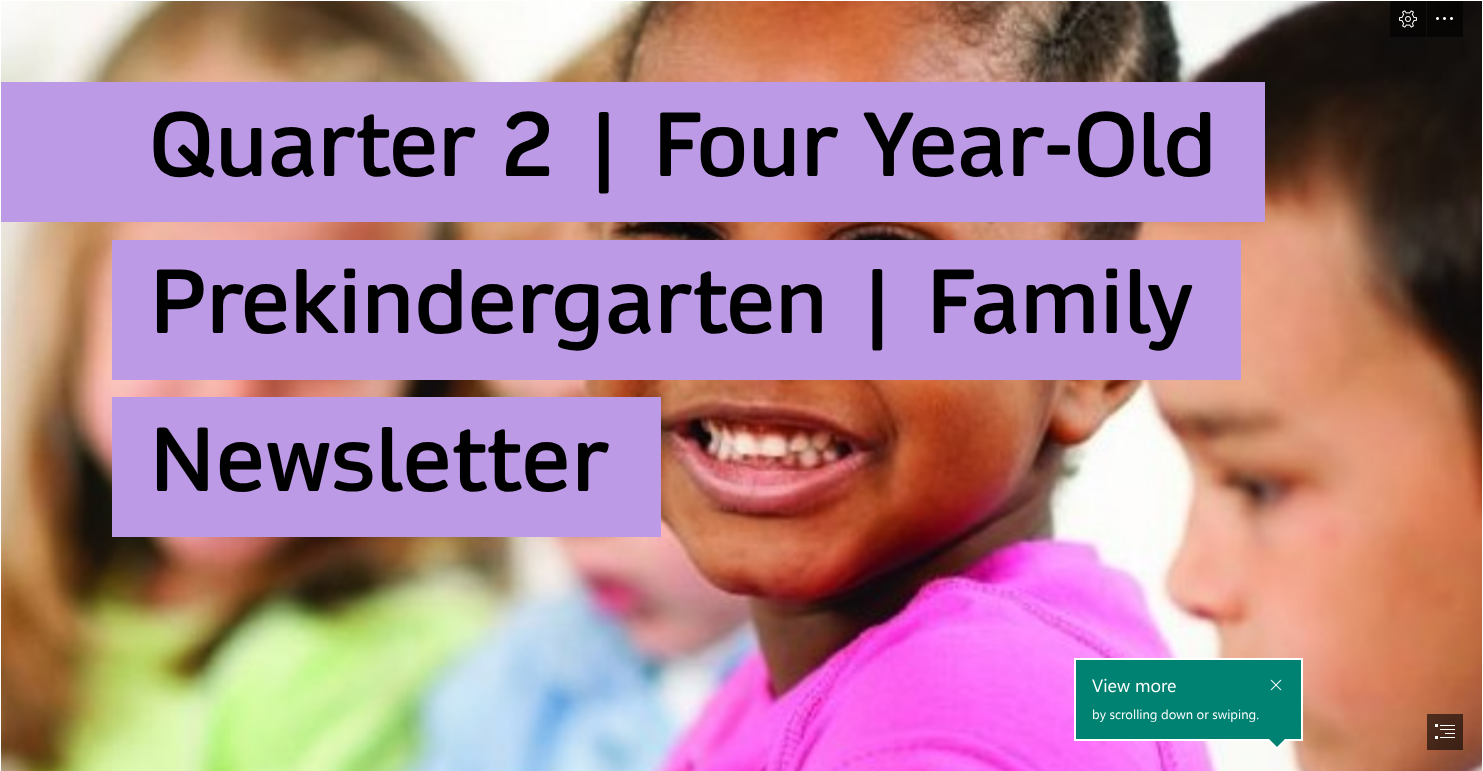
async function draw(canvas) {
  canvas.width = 1483
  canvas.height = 771
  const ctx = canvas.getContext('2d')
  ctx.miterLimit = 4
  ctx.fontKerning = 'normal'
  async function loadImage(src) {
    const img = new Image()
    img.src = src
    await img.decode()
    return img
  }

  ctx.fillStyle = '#fff'
  ctx.fillRect(0, 0, 1483, 771)
  ctx.drawImage(await loadImage('image2.png'), 1, 1, 1481, 770)
  ctx.fillStyle = '#00000099'
  ctx.fillRect(1390, 1, 36, 36)
  ctx.drawImage(await loadImage('image0.png'), 1399, 10, 18, 18)
  ctx.fillRect(1427, 1, 36, 36)
  ctx.drawImage(await loadImage('image1.png'), 1436, 17, 17, 3)
  ctx.fillStyle = '#bc9ae6'
  ctx.fillRect(1, 82, 1264, 140)
  ctx.letterSpacing = '-1.2px'
  ctx.font = '600 86.9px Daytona'
  ctx.fillStyle = '#000'
  ctx.fillText('Quarter 2 | Four Year-Old', 149, 176)
  ctx.fillStyle = '#bc9ae6'
  ctx.fillRect(112, 240, 1129, 140)
  ctx.fillStyle = '#000'
  ctx.fillText('Prekindergarten | Family', 149, 333)
  ctx.fillStyle = '#bc9ae6'
  ctx.fillRect(112, 397, 549, 140)
  ctx.letterSpacing = '0px'
  ctx.fillStyle = '#000'
  ctx.fillText('Newsletter', 149, 491)
  ctx.fillStyle = '#008272'
  ctx.beginPath()
  ctx.rect(1075, 659, 227, 81)
  ctx.fill()
  ctx.strokeStyle = '#fff'
  ctx.lineWidth = 2
  ctx.stroke()
  ctx.font = '18px Segoe UI'
  ctx.fillStyle = '#fff'
  ctx.fillText('View more', 1092, 692)
  ctx.font = '13px Segoe UI'
  ctx.fillText('by scrolling down or swiping.', 1092, 719)
  ctx.drawImage(await loadImage('image3.png'), 1270, 679, 12, 12)
  ctx.beginPath()
  ctx.moveTo(1267, 739)
  ctx.lineTo(1287, 739)
  ctx.lineTo(1277, 749)
  ctx.closePath()
  ctx.fill()
  ctx.fillStyle = '#008272'
  ctx.beginPath()
  ctx.moveTo(1269, 739)
  ctx.lineTo(1285, 739)
  ctx.lineTo(1277, 747)
  ctx.closePath()
  ctx.fill()
  ctx.fillStyle = '#00000099'
  ctx.fillRect(1427, 714, 36, 36)
  ctx.drawImage(await loadImage('image4.png'), 1435, 724, 20, 15)
}

draw(document.querySelector('canvas'))
